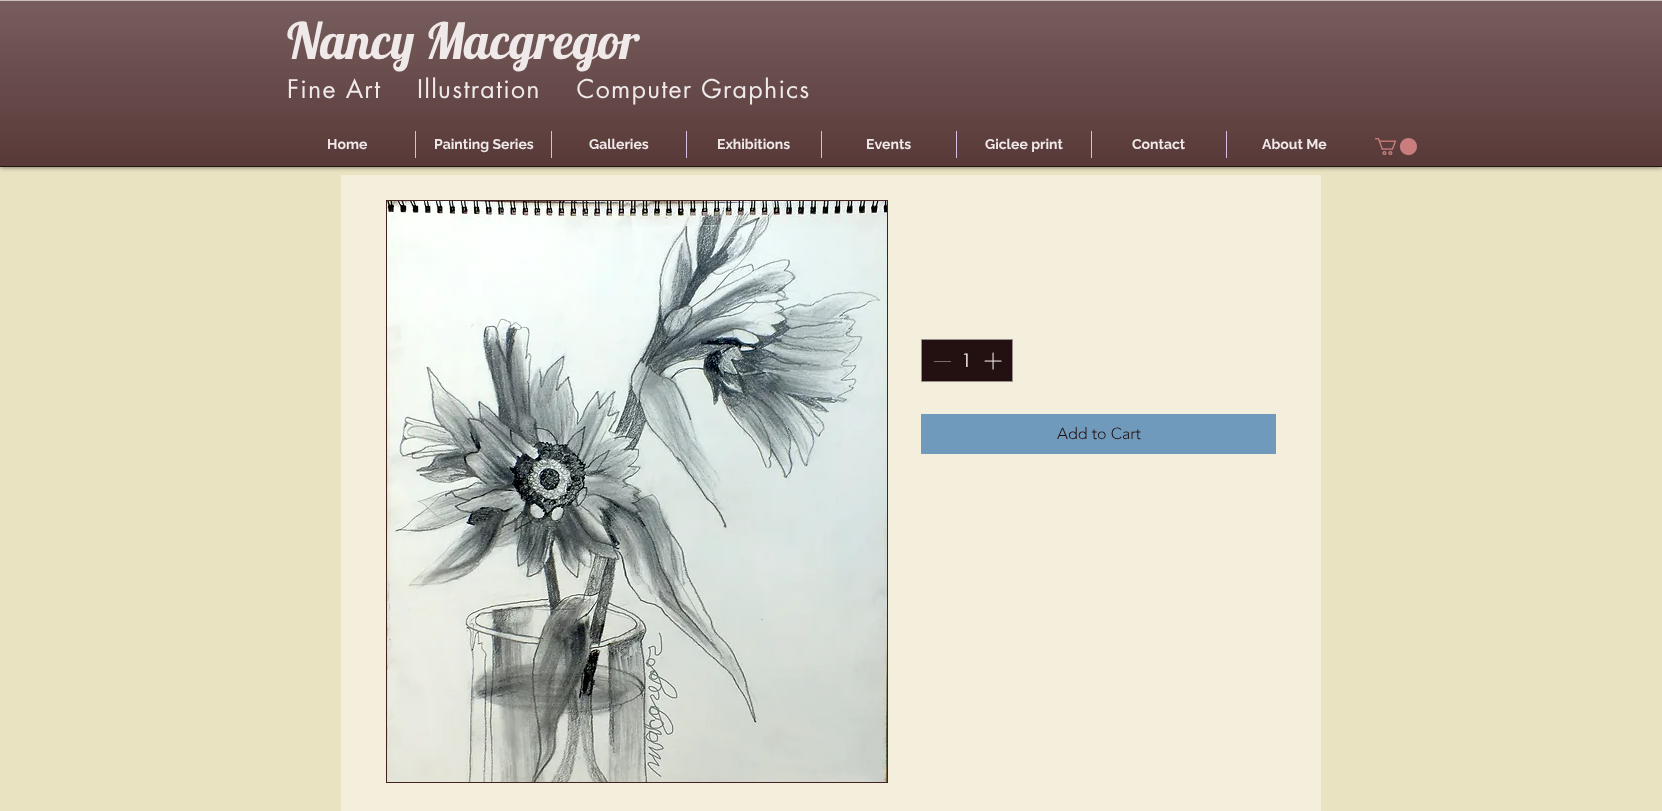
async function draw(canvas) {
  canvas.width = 1662
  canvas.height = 811
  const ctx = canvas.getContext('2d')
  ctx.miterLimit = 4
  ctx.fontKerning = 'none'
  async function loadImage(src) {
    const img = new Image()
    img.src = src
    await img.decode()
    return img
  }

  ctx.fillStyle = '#e9e3c2'
  ctx.fillRect(0, 0, 1662, 811)
  ctx.fillStyle = '#00000099'
  ctx.filter = 'blur(2.5px)'
  ctx.beginPath()
  ctx.rect(0, 0, 1662, 167)
  ctx.fill()
  ctx.filter = 'none'
  ctx.fillStyle = '#482625'
  ctx.fillRect(0, 1, 1662, 165)
  ctx.drawImage(await loadImage('image0.png'), 0, 1, 1662, 165)
  ctx.fillStyle = '#231717'
  ctx.fillRect(0, 166, 1662, 1)
  ctx.fillStyle = '#c9bfbe'
  ctx.fillRect(0, 0, 1662, 1)
  ctx.font = '50px Lobster'
  ctx.fillStyle = '#f0e9e9'
  ctx.fillText('Nancy Macgregor', 287, 59)
  ctx.letterSpacing = '1.25px'
  ctx.font = '25px futura'
  ctx.fillText('Fine Art    Illustration    Computer Graphics', 287, 98)
  ctx.letterSpacing = '0px'
  ctx.font = 'bold 14px Raleway'
  ctx.fillText('Home', 327, 149)
  ctx.fillStyle = '#d8bde2'
  ctx.fillRect(415, 131, 1, 27)
  ctx.fillStyle = '#f0e9e9'
  ctx.fillText('Painting Series', 434, 149)
  ctx.fillStyle = '#d8bde2'
  ctx.fillRect(551, 131, 1, 27)
  ctx.fillStyle = '#f0e9e9'
  ctx.fillText('Galleries', 589, 149)
  ctx.fillStyle = '#d8bde2'
  ctx.fillRect(686, 131, 1, 27)
  ctx.fillStyle = '#f0e9e9'
  ctx.fillText('Exhibitions', 717, 149)
  ctx.fillStyle = '#d8bde2'
  ctx.fillRect(821, 131, 1, 27)
  ctx.fillStyle = '#f0e9e9'
  ctx.fillText('Events', 866, 149)
  ctx.fillStyle = '#d8bde2'
  ctx.fillRect(956, 131, 1, 27)
  ctx.fillStyle = '#f0e9e9'
  ctx.fillText('Giclee print', 985, 149)
  ctx.fillStyle = '#d8bde2'
  ctx.fillRect(1091, 131, 1, 27)
  ctx.fillStyle = '#f0e9e9'
  ctx.fillText('Contact', 1132, 149)
  ctx.fillStyle = '#d8bde2'
  ctx.fillRect(1226, 131, 1, 27)
  ctx.fillStyle = '#f0e9e9'
  ctx.fillText('About Me', 1262, 149)
  ctx.drawImage(await loadImage('image1.png'), 1375, 138, 42, 18)
  ctx.fillStyle = '#f3efdc'
  ctx.fillRect(341, 175, 980, 636)
  ctx.strokeStyle = '#452222'
  ctx.strokeRect(386.5, 200.5, 501, 582)
  ctx.drawImage(await loadImage('image2.png'), 387, 201, 500, 581)
  ctx.fillStyle = '#231111'
  ctx.beginPath()
  ctx.rect(921.5, 339.5, 91, 42)
  ctx.fill()
  ctx.strokeStyle = '#998d8d'
  ctx.stroke()
  ctx.fillStyle = '#756c6c'
  ctx.fillRect(934, 361, 17, 1)
  ctx.font = '18px futura'
  ctx.fillStyle = '#e8dfdf'
  ctx.fillText('1', 961, 367)
  ctx.drawImage(await loadImage('image3.png'), 984, 352, 18, 18)
  ctx.fillStyle = '#709abc'
  ctx.fillRect(921, 414, 355, 40)
  ctx.font = '300 16px "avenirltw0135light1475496"'
  ctx.fillStyle = '#231111'
  ctx.fillText('Add to Cart', 1057, 439)
}

draw(document.querySelector('canvas'))
